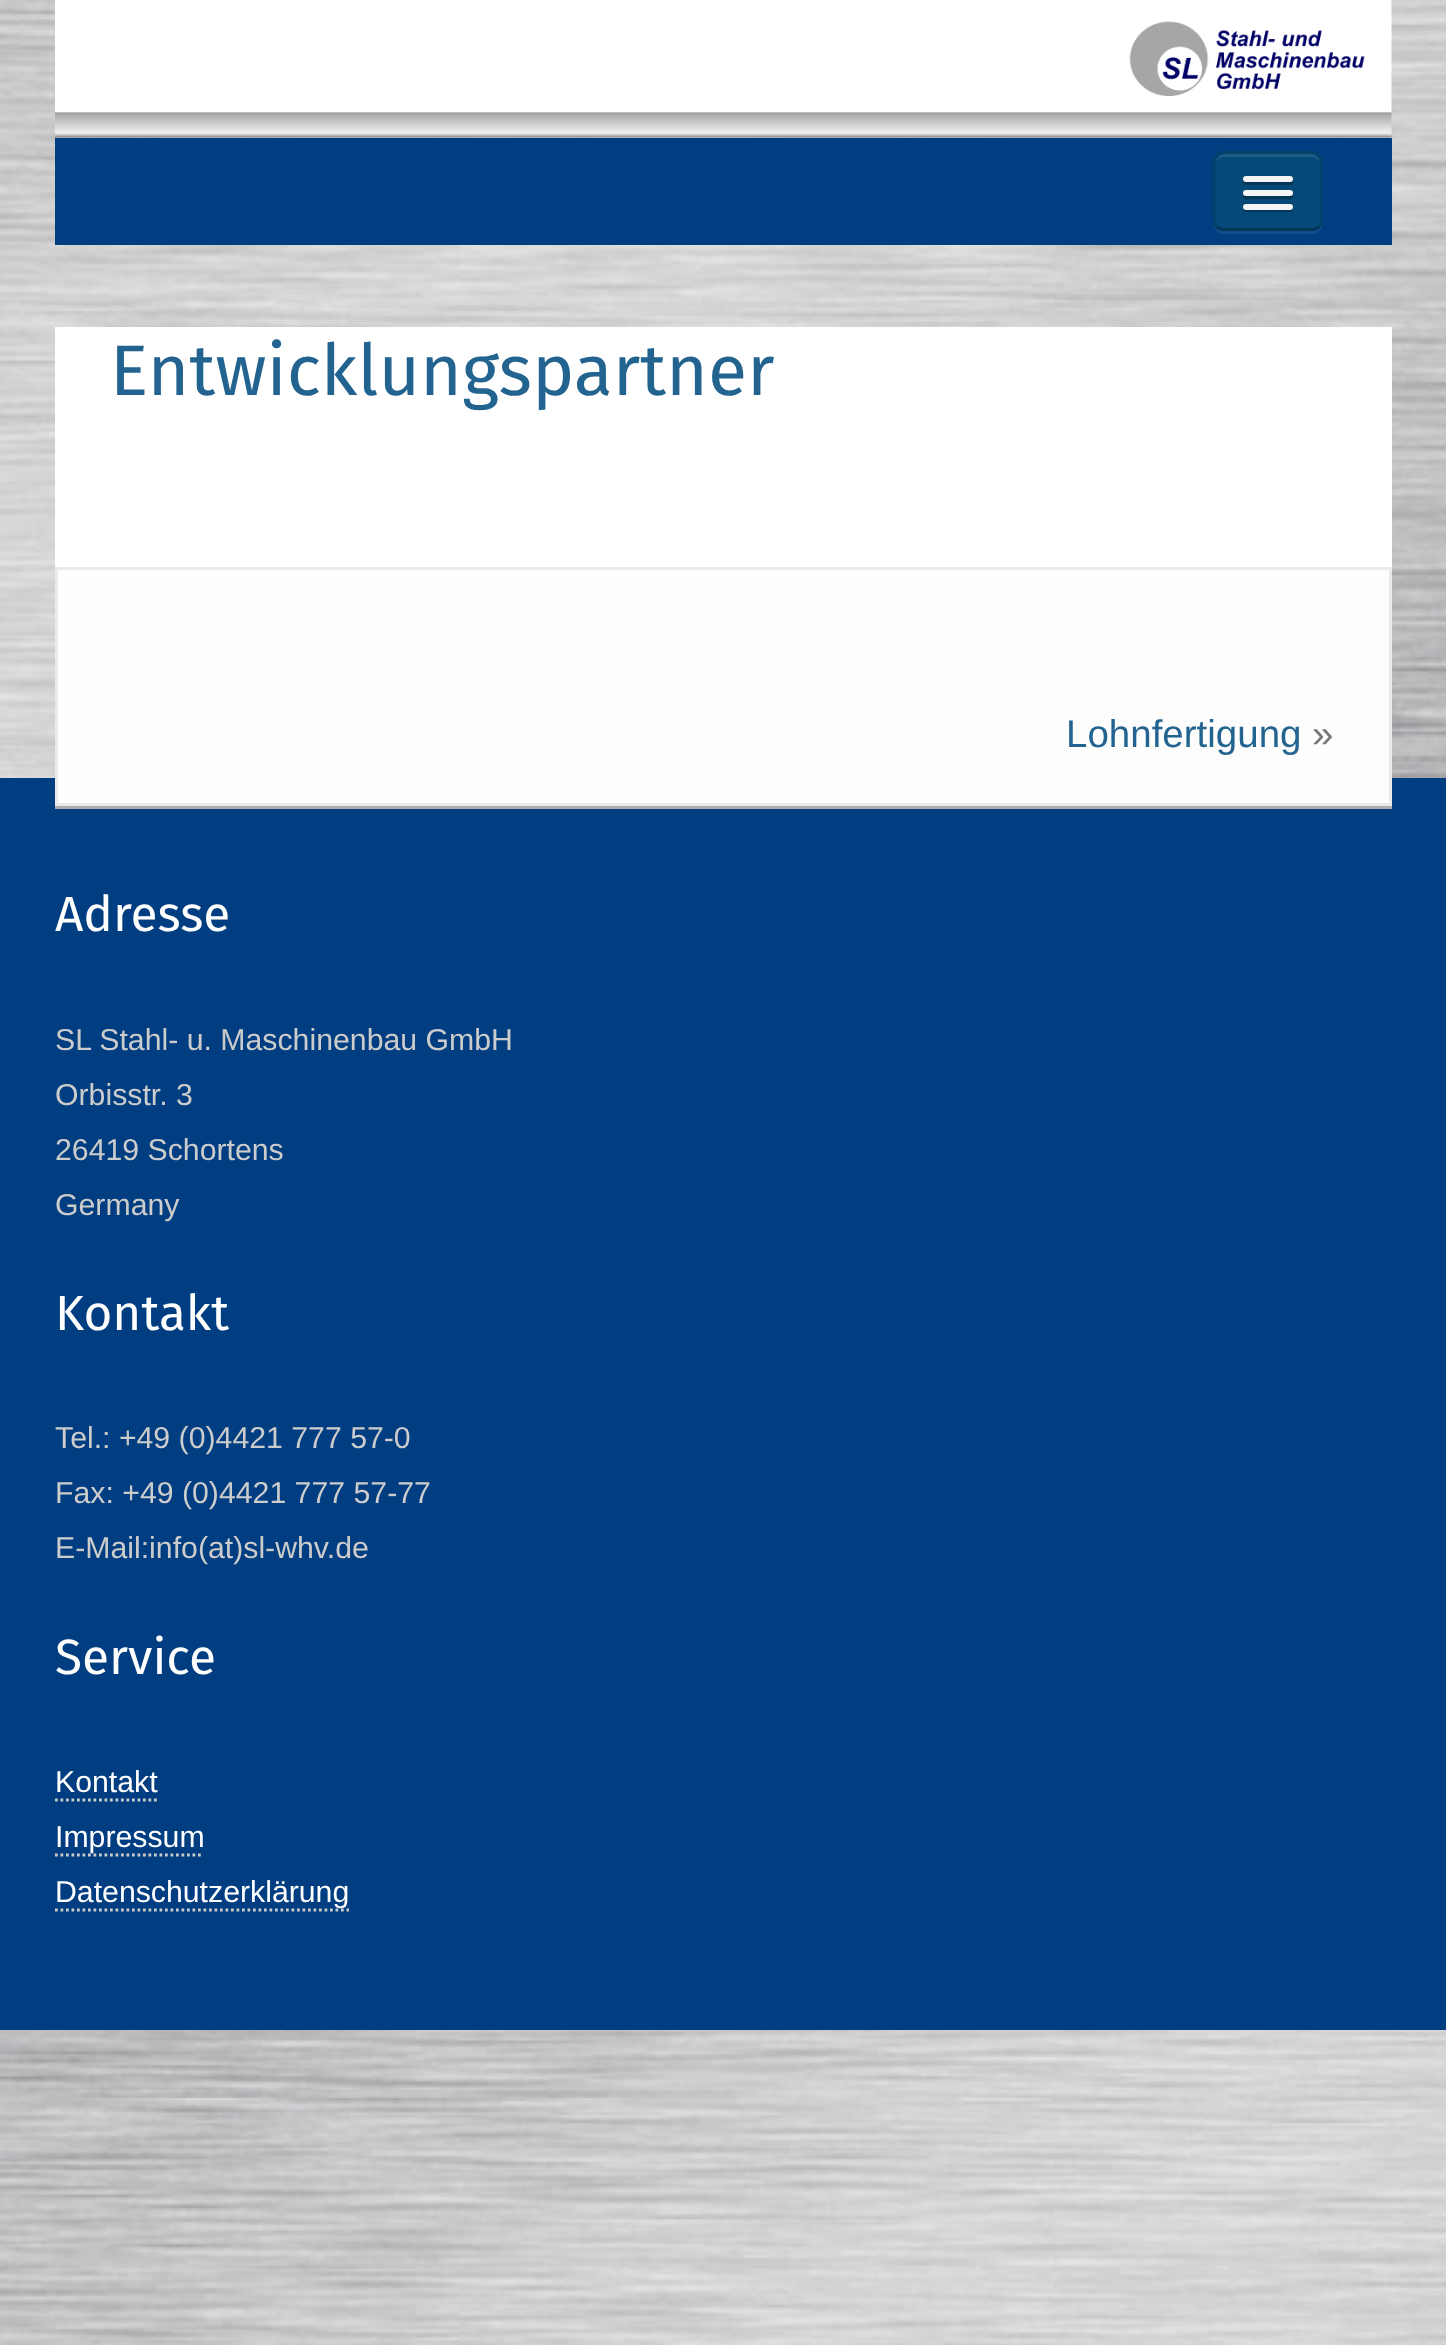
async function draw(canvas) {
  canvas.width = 1446
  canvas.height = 2345
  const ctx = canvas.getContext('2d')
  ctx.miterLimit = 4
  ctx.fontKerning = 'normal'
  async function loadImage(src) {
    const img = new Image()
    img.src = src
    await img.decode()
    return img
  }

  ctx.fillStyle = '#fff'
  ctx.fillRect(0, 0, 1446, 2345)
  ctx.drawImage(await loadImage('image0.png'), 0, 0, 1446, 2345)
  ctx.drawImage(await loadImage('image1.png'), 55, 0, 1337, 138)
  ctx.fillStyle = '#003e81'
  ctx.fillRect(55, 138, 1337, 107)
  ctx.fillStyle = '#134c8a'
  ctx.beginPath()
  ctx.moveTo(1213, 222)
  ctx.lineTo(1213, 223)
  ctx.bezierCurveTo(1213, 229, 1218, 234, 1224, 234)
  ctx.lineTo(1312, 234)
  ctx.bezierCurveTo(1318, 234, 1323, 229, 1323, 223)
  ctx.lineTo(1323, 163)
  ctx.lineTo(1323, 220)
  ctx.bezierCurveTo(1323, 226, 1318, 231, 1312, 231)
  ctx.lineTo(1224, 231)
  ctx.bezierCurveTo(1218, 231, 1214, 227, 1213, 222)
  ctx.closePath()
  ctx.fill()
  ctx.fillStyle = '#044977'
  ctx.beginPath()
  ctx.roundRect(1213, 151, 110, 80, 11)
  ctx.fill()
  ctx.fillStyle = '#1d5b85'
  ctx.beginPath()
  ctx.moveTo(1224, 157)
  ctx.lineTo(1312, 157)
  ctx.bezierCurveTo(1316, 157, 1320, 160, 1320, 165)
  ctx.bezierCurveTo(1320, 151, 1309, 154, 1297, 154)
  ctx.lineTo(1239, 154)
  ctx.bezierCurveTo(1227, 154, 1216, 151, 1216, 165)
  ctx.bezierCurveTo(1216, 160, 1219, 157, 1224, 157)
  ctx.closePath()
  ctx.fill()
  ctx.beginPath()
  ctx.moveTo(1318.5, 227)
  ctx.bezierCurveTo(1317, 228.5, 1314.5, 229.5, 1312, 229.5)
  ctx.lineTo(1224, 229.5)
  ctx.bezierCurveTo(1221, 229.5, 1218.5, 228.5, 1217, 227)
  ctx.strokeStyle = '#00000040'
  ctx.lineWidth = 2.8
  ctx.stroke()
  ctx.beginPath()
  ctx.moveTo(1217, 227)
  ctx.bezierCurveTo(1215, 225, 1214, 222.5, 1214, 220)
  ctx.lineTo(1214, 162)
  ctx.bezierCurveTo(1214, 159.5, 1215, 157, 1217, 155.5)
  ctx.bezierCurveTo(1218.5, 153.5, 1221, 152.5, 1224, 152.5)
  ctx.lineTo(1312, 152.5)
  ctx.bezierCurveTo(1314.5, 152.5, 1317, 153.5, 1318.5, 155.5)
  ctx.bezierCurveTo(1320.5, 157, 1321.5, 159.5, 1321.5, 162)
  ctx.lineTo(1321.5, 220)
  ctx.bezierCurveTo(1321.5, 222.5, 1320.5, 225, 1318.5, 227)
  ctx.strokeStyle = '#0000001a'
  ctx.stroke()
  ctx.fillStyle = '#033759'
  ctx.beginPath()
  ctx.moveTo(1244, 180)
  ctx.bezierCurveTo(1239, 186, 1253, 185, 1253, 185)
  ctx.lineTo(1283, 185)
  ctx.bezierCurveTo(1284, 185, 1292, 187, 1293, 183)
  ctx.lineTo(1292, 180)
  ctx.lineTo(1290, 181)
  ctx.lineTo(1245, 181)
  ctx.closePath()
  ctx.fill()
  ctx.fillStyle = '#f5f5f5'
  ctx.beginPath()
  ctx.roundRect(1243, 176, 50, 6, 3)
  ctx.fill()
  ctx.fillStyle = '#033759'
  ctx.beginPath()
  ctx.moveTo(1244, 194)
  ctx.lineTo(1243, 197)
  ctx.bezierCurveTo(1244, 201, 1252, 199, 1253, 199)
  ctx.lineTo(1283, 199)
  ctx.bezierCurveTo(1284, 199, 1292, 201, 1293, 197)
  ctx.bezierCurveTo(1293, 196, 1293, 195, 1292, 194)
  ctx.lineTo(1290, 195)
  ctx.lineTo(1245, 195)
  ctx.closePath()
  ctx.fill()
  ctx.fillStyle = '#f5f5f5'
  ctx.beginPath()
  ctx.roundRect(1243, 190, 50, 6, 3)
  ctx.fill()
  ctx.fillStyle = '#033759'
  ctx.beginPath()
  ctx.moveTo(1243, 208)
  ctx.bezierCurveTo(1240, 213, 1252, 212, 1253, 212)
  ctx.lineTo(1291, 212)
  ctx.bezierCurveTo(1293, 212, 1294, 209, 1292, 207)
  ctx.bezierCurveTo(1292, 208, 1291, 209, 1290, 209)
  ctx.lineTo(1246, 209)
  ctx.bezierCurveTo(1245, 209, 1244, 208, 1243, 208)
  ctx.closePath()
  ctx.fill()
  ctx.fillStyle = '#f5f5f5'
  ctx.beginPath()
  ctx.roundRect(1243, 204, 50, 6, 3)
  ctx.fill()
  ctx.fillStyle = '#fff'
  ctx.fillRect(55, 327, 1337, 240)
  ctx.font = '71.5px Fira Sans'
  ctx.fillStyle = '#236390'
  ctx.fillText('Entwicklungspartner', 110, 395)
  ctx.fillStyle = '#003e81'
  ctx.fillRect(0, 778, 1446, 1252)
  ctx.fillStyle = '#adadad'
  ctx.beginPath()
  ctx.moveTo(55, 806)
  ctx.lineTo(55, 809)
  ctx.lineTo(1392, 809)
  ctx.lineTo(1392, 569)
  ctx.lineTo(1392, 806)
  ctx.closePath()
  ctx.fill()
  ctx.fillStyle = '#fdfdfd'
  ctx.beginPath()
  ctx.rect(56.5, 568.5, 1334, 236)
  ctx.fill()
  ctx.strokeStyle = '#eaeaea'
  ctx.lineWidth = 3
  ctx.stroke()
  ctx.font = '38.5px Liberation Sans'
  ctx.fillStyle = '#236390'
  ctx.fillText('Lohnfertigung', 1066, 747)
  ctx.fillStyle = '#777'
  ctx.fillText('»', 1312, 747)
  ctx.font = '49.5px Fira Sans'
  ctx.fillStyle = '#fff'
  ctx.fillText('Adresse', 55, 931)
  ctx.font = '30.25px Liberation Sans'
  ctx.fillStyle = '#ccc'
  ctx.fillText('SL Stahl- u. Maschinenbau GmbH', 55, 1050)
  ctx.fillText('Orbisstr. 3', 55, 1105)
  ctx.fillText('26419 Schortens', 55, 1160)
  ctx.fillText('Germany', 55, 1215)
  ctx.font = '49.5px Fira Sans'
  ctx.fillStyle = '#fff'
  ctx.fillText('Kontakt', 55, 1330)
  ctx.font = '30.25px Liberation Sans'
  ctx.fillStyle = '#ccc'
  ctx.fillText('Tel.: +49 (0)4421 777 57-0', 55, 1448)
  ctx.fillText('Fax: +49 (0)4421 777 57-77', 55, 1503)
  ctx.fillText('E-Mail:info(at)sl-whv.de', 55, 1558)
  ctx.font = '49.5px Fira Sans'
  ctx.fillStyle = '#fff'
  ctx.fillText('Service', 55, 1674)
  ctx.font = '30.25px Liberation Sans'
  ctx.fillText('Kontakt', 55, 1792)
  ctx.beginPath()
  ctx.moveTo(55, 1800)
  ctx.lineTo(157, 1800)
  ctx.strokeStyle = '#ccc'
  ctx.lineWidth = 2.8
  ctx.setLineDash([2.75, 2.75])
  ctx.stroke()
  ctx.beginPath()
  ctx.moveTo(55, 1855)
  ctx.lineTo(203.5, 1855)
  ctx.stroke()
  ctx.fillText('Impressum', 55, 1847)
  ctx.beginPath()
  ctx.moveTo(55, 1910)
  ctx.lineTo(349, 1910)
  ctx.stroke()
  ctx.fillText('Datenschutzerklärung', 55, 1902)
}

draw(document.querySelector('canvas'))
